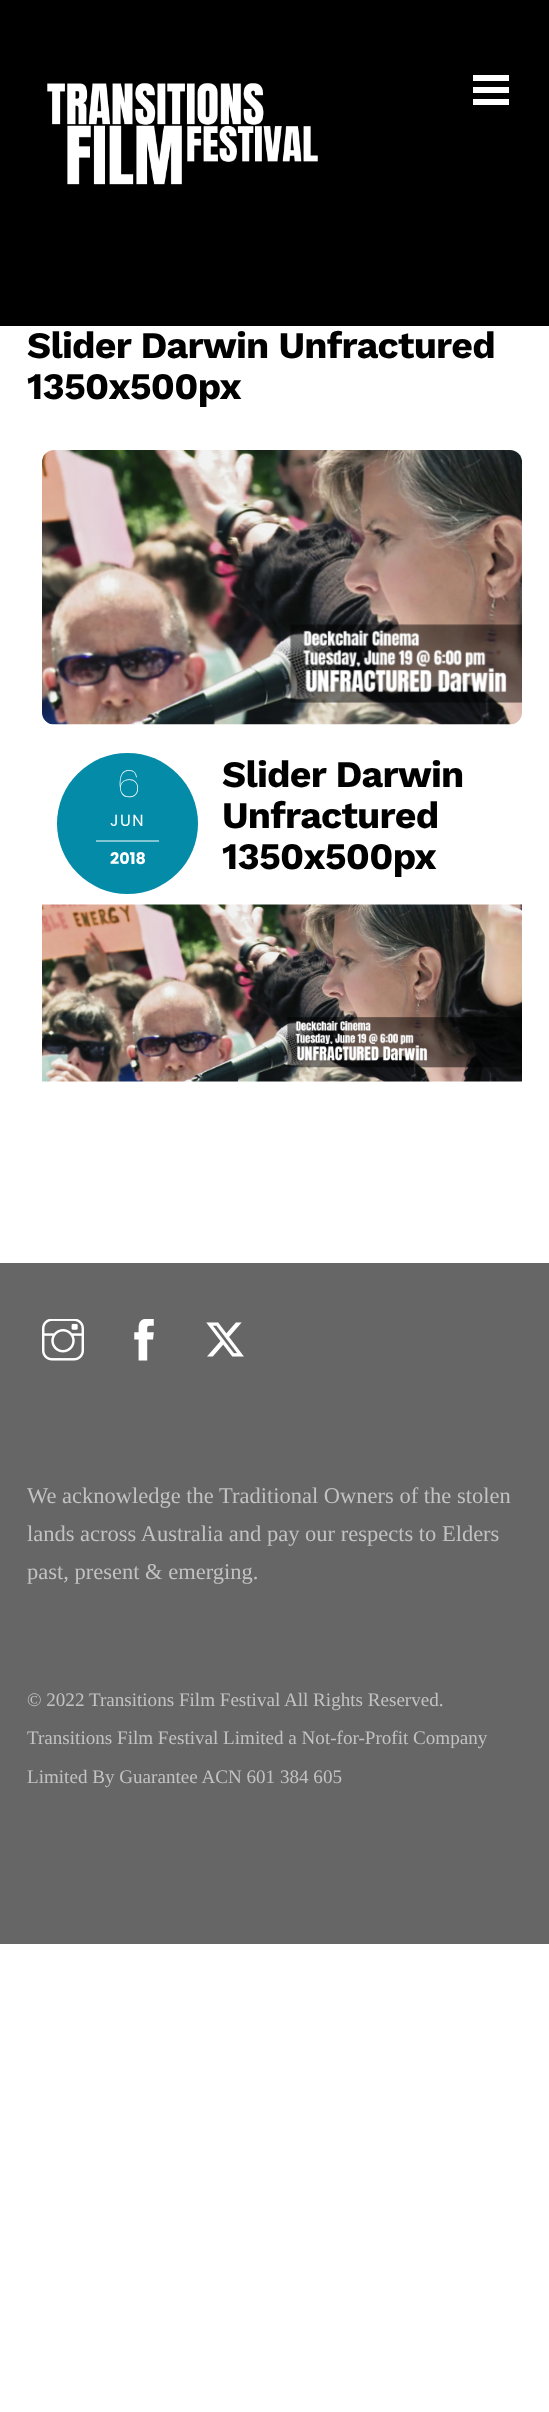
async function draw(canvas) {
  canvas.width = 549
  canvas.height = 2412
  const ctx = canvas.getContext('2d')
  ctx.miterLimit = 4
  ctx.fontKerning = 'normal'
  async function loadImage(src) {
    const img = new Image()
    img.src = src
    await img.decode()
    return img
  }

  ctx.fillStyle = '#fff'
  ctx.fillRect(0, 0, 549, 2412)
  ctx.fillStyle = '#000'
  ctx.fillRect(0, 0, 549, 326)
  ctx.drawImage(await loadImage('image0.png'), 47, 83, 271, 102)
  ctx.fillStyle = '#fff'
  ctx.fillRect(473, 75, 36, 6)
  ctx.fillRect(473, 99, 36, 6)
  ctx.fillRect(473, 87, 36, 6)
  ctx.letterSpacing = '-0.75px'
  ctx.font = 'bold 37.5px Work Sans'
  ctx.fillStyle = '#000'
  ctx.fillText('Slider Darwin Unfractured', 27, 358)
  ctx.fillText('1350x500px', 27, 399)
  ctx.drawImage(await loadImage('image1.png'), 42, 450, 480, 275)
  ctx.fillStyle = '#038ba7'
  ctx.beginPath()
  ctx.arc(127.5, 823.5, 70.5, 0, 2 * Math.PI)
  ctx.fill()
  ctx.letterSpacing = '-2px'
  ctx.font = '100 38px Poppins'
  ctx.fillStyle = '#fff'
  ctx.fillText('6', 117, 797)
  ctx.letterSpacing = '1.5px'
  ctx.font = '16px Poppins'
  ctx.fillText('JUN', 110, 826)
  ctx.fillStyle = '#81c5d3'
  ctx.fillRect(96, 840, 63, 2)
  ctx.letterSpacing = '0px'
  ctx.font = 'bold 16px Poppins'
  ctx.fillStyle = '#fff'
  ctx.fillText('2018', 110, 864)
  ctx.letterSpacing = '-0.75px'
  ctx.font = 'bold 37.5px Work Sans'
  ctx.fillStyle = '#000'
  ctx.fillText('Slider Darwin', 222, 787)
  ctx.fillText('Unfractured', 222, 828)
  ctx.fillText('1350x500px', 222, 869)
  ctx.drawImage(await loadImage('image2.png'), 42, 904, 480, 178)
  ctx.fillStyle = '#666'
  ctx.fillRect(0, 1263, 549, 681)
  ctx.drawImage(await loadImage('image3.png'), 42, 1319, 42, 42)
  ctx.drawImage(await loadImage('image4.png'), 134, 1319, 20, 42)
  ctx.drawImage(await loadImage('image5.png'), 206, 1322, 38, 35)
  ctx.letterSpacing = '0px'
  ctx.font = '22.5px Liberation Serif'
  ctx.fillStyle = '#c2c2c2'
  ctx.fillText('We acknowledge the Traditional Owners of the stolen', 27, 1503)
  ctx.fillText('lands across Australia and pay our respects to Elders', 27, 1541)
  ctx.fillText('past, present & emerging.', 27, 1579)
  ctx.font = '19.1px Liberation Serif'
  ctx.fillText('© 2022 Transitions Film Festival All Rights Reserved.', 27, 1706)
  ctx.fillText('Transitions Film Festival Limited a Not-for-Profit Company', 27, 1744)
  ctx.fillText('Limited By Guarantee ACN 601 384 605', 27, 1783)
}

draw(document.querySelector('canvas'))
